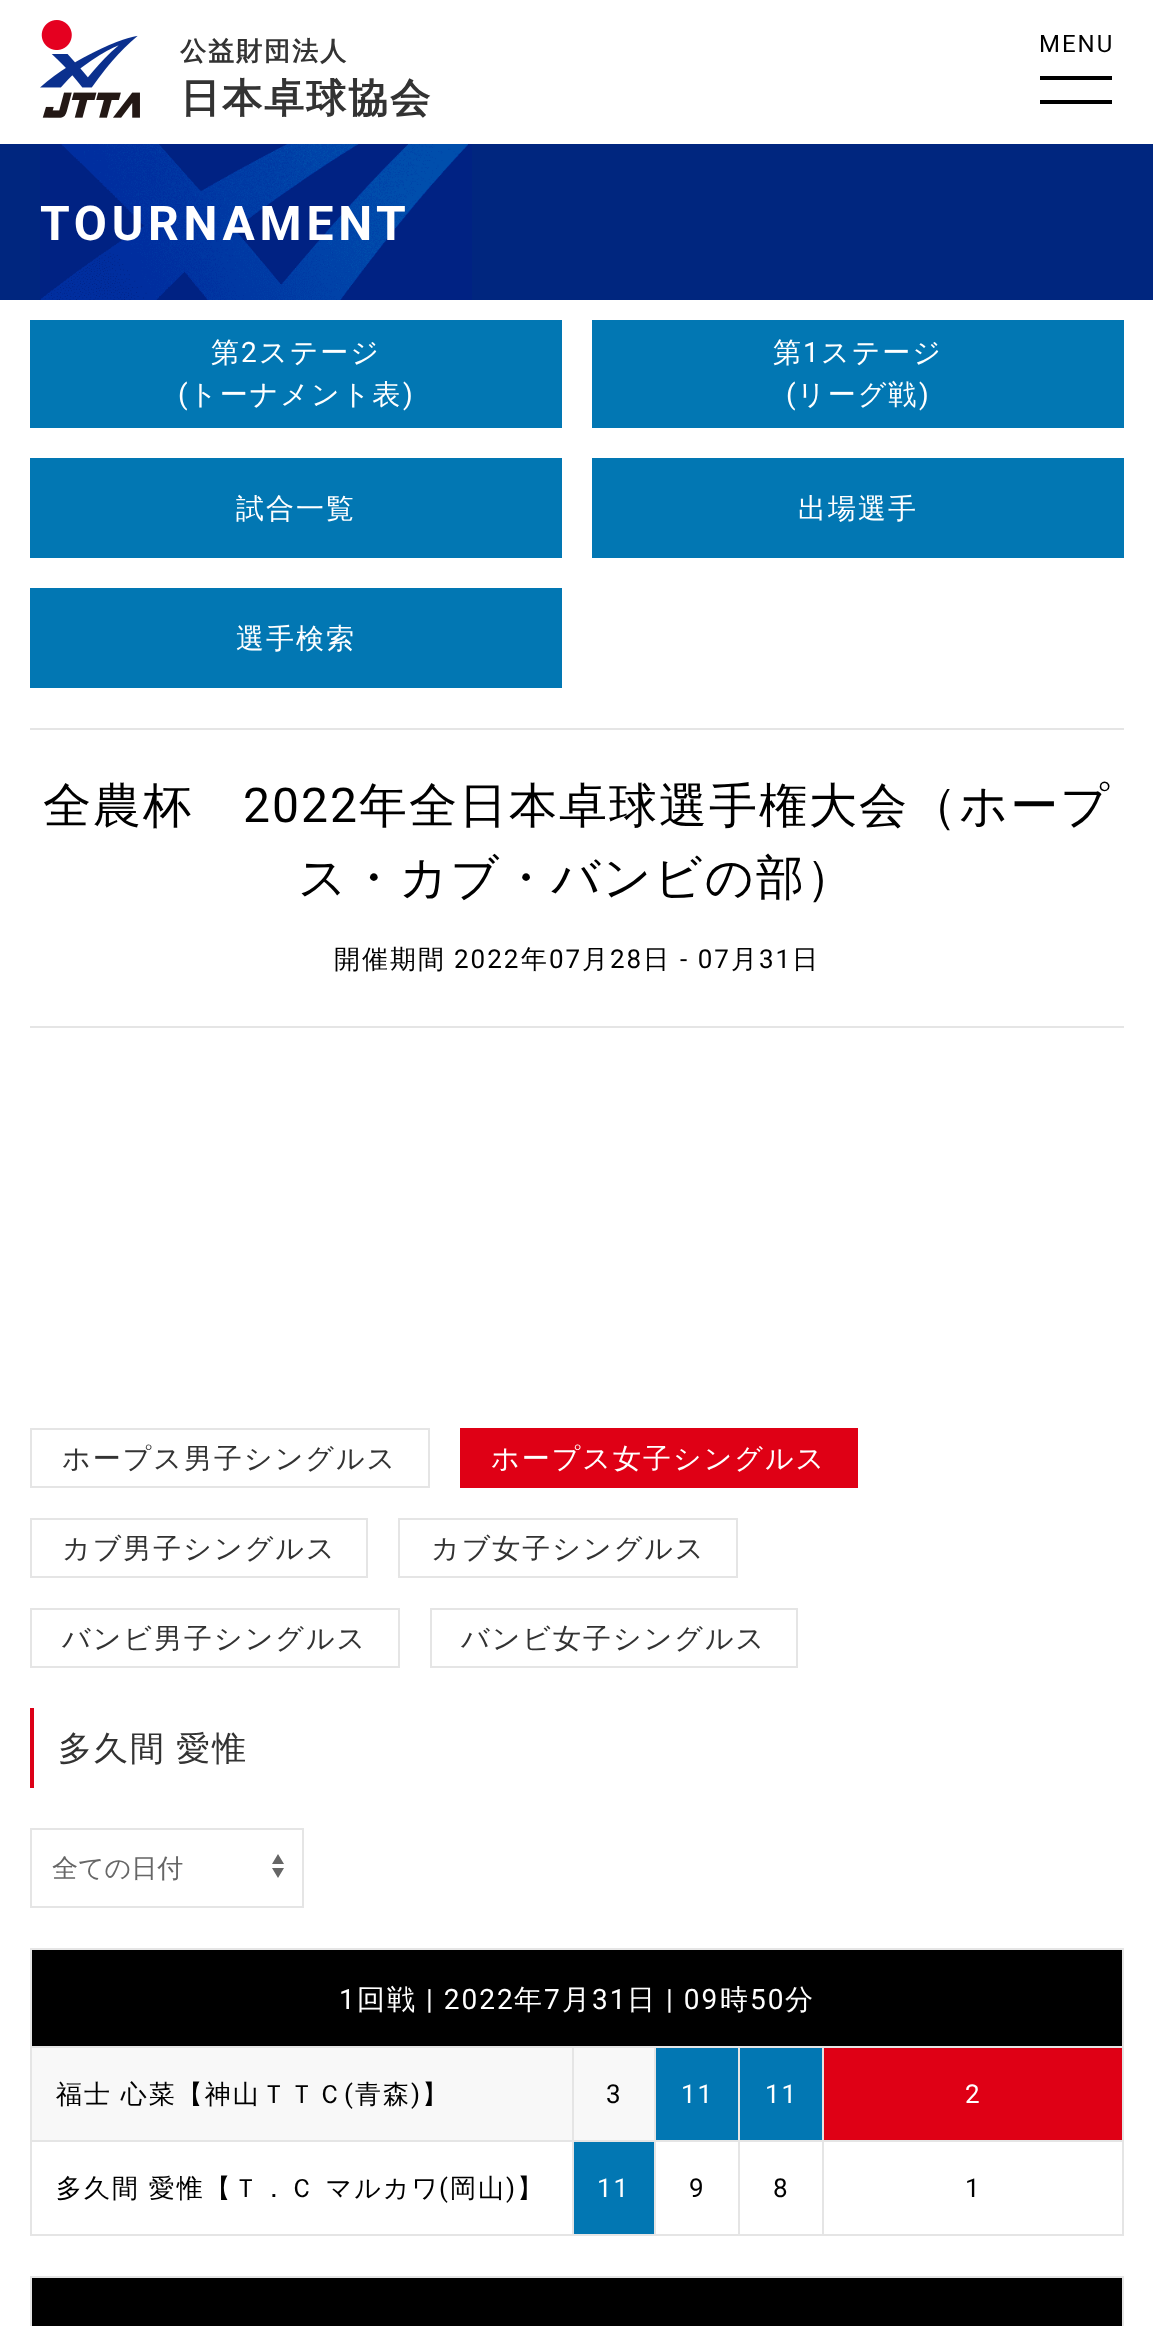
async function draw(canvas) {
  canvas.width = 1153
  canvas.height = 2326
  const ctx = canvas.getContext('2d')
  ctx.miterLimit = 4
  ctx.fontKerning = 'normal'
  async function loadImage(src) {
    const img = new Image()
    img.src = src
    await img.decode()
    return img
  }

  ctx.fillStyle = '#fff'
  ctx.fillRect(0, 0, 1153, 2326)
  ctx.drawImage(await loadImage('image0.png'), 40, 20, 100, 98)
  ctx.letterSpacing = '2px'
  ctx.font = 'bold 26px WenQuanYi Zen Hei'
  ctx.fillStyle = '#333'
  ctx.fillText('公益財団法人', 180, 60)
  ctx.font = 'bold 40px WenQuanYi Zen Hei'
  ctx.fillText('日本卓球協会', 180, 112)
  ctx.font = '24px Roboto'
  ctx.fillStyle = '#000'
  ctx.fillText('MENU', 1039, 52)
  ctx.fillRect(1040, 76, 72, 4)
  ctx.fillRect(1040, 100, 72, 4)
  ctx.fillStyle = '#00267f'
  ctx.fillRect(0, 144, 1153, 156)
  ctx.drawImage(await loadImage('image1.png'), 40, 144, 432, 156)
  ctx.letterSpacing = '4.75px'
  ctx.font = 'bold 48px Roboto'
  ctx.fillStyle = '#fff'
  ctx.fillText('TOURNAMENT', 40, 240)
  ctx.fillStyle = '#0277b3'
  ctx.fillRect(30, 320, 532, 108)
  ctx.letterSpacing = '2px'
  ctx.font = '500 28px WenQuanYi Zen Hei'
  ctx.fillStyle = '#fff'
  ctx.fillText('第', 211, 362)
  ctx.font = '28px Roboto'
  ctx.fillText('2', 241, 362)
  ctx.font = '500 28px WenQuanYi Zen Hei'
  ctx.fillText('ステージ', 259, 362)
  ctx.font = '28px Roboto'
  ctx.fillText('(', 178, 404)
  ctx.font = '500 28px WenQuanYi Zen Hei'
  ctx.fillText('トーナメント表', 189, 404)
  ctx.font = '28px Roboto'
  ctx.fillText(')', 403, 404)
  ctx.fillStyle = '#0277b3'
  ctx.fillRect(592, 320, 532, 108)
  ctx.font = '500 28px WenQuanYi Zen Hei'
  ctx.fillStyle = '#fff'
  ctx.fillText('第', 773, 362)
  ctx.font = '28px Roboto'
  ctx.fillText('1', 803, 362)
  ctx.font = '500 28px WenQuanYi Zen Hei'
  ctx.fillText('ステージ', 821, 362)
  ctx.font = '28px Roboto'
  ctx.fillText('(', 786, 404)
  ctx.font = '500 28px WenQuanYi Zen Hei'
  ctx.fillText('リーグ戦', 797, 404)
  ctx.font = '28px Roboto'
  ctx.fillText(')', 919, 404)
  ctx.fillStyle = '#0277b3'
  ctx.fillRect(30, 458, 532, 100)
  ctx.font = '500 28px WenQuanYi Zen Hei'
  ctx.fillStyle = '#fff'
  ctx.fillText('試合一覧', 236, 518)
  ctx.fillStyle = '#0277b3'
  ctx.fillRect(592, 458, 532, 100)
  ctx.fillStyle = '#fff'
  ctx.fillText('出場選手', 798, 518)
  ctx.fillStyle = '#0277b3'
  ctx.fillRect(30, 588, 532, 100)
  ctx.fillStyle = '#fff'
  ctx.fillText('選手検索', 236, 648)
  ctx.fillStyle = '#e5e5e5'
  ctx.fillRect(30, 728, 1094, 2)
  ctx.font = '500 48px WenQuanYi Zen Hei'
  ctx.fillStyle = '#000'
  ctx.fillText('全農杯', 43, 822)
  ctx.font = '48px Roboto'
  ctx.fillText('2022', 243, 822)
  ctx.font = '500 48px WenQuanYi Zen Hei'
  ctx.fillText('年全日本卓球選手権大会（ホープ', 359, 822)
  ctx.fillText('ス・カブ・バンビの部）', 298, 894)
  ctx.font = '500 26px WenQuanYi Zen Hei'
  ctx.fillText('開催期間', 334, 968)
  ctx.font = '26px Roboto'
  ctx.fillText('2022', 454, 968)
  ctx.font = '500 26px WenQuanYi Zen Hei'
  ctx.fillText('年', 521, 968)
  ctx.font = '26px Roboto'
  ctx.fillText('07', 549, 968)
  ctx.font = '500 26px WenQuanYi Zen Hei'
  ctx.fillText('月', 582, 968)
  ctx.font = '26px Roboto'
  ctx.fillText('28', 610, 968)
  ctx.font = '500 26px WenQuanYi Zen Hei'
  ctx.fillText('日', 643, 968)
  ctx.font = '26px Roboto'
  ctx.fillText('- 07', 680, 968)
  ctx.font = '500 26px WenQuanYi Zen Hei'
  ctx.fillText('月', 731, 968)
  ctx.font = '26px Roboto'
  ctx.fillText('31', 759, 968)
  ctx.font = '500 26px WenQuanYi Zen Hei'
  ctx.fillText('日', 792, 968)
  ctx.fillStyle = '#e5e5e5'
  ctx.fillRect(30, 1026, 1094, 2)
  ctx.strokeStyle = '#e5e5e5'
  ctx.lineWidth = 2
  ctx.strokeRect(31, 1429, 398, 58)
  ctx.font = '500 28px WenQuanYi Zen Hei'
  ctx.fillStyle = '#333'
  ctx.fillText('ホープス男子シングルス', 62, 1468)
  ctx.fillStyle = '#df0015'
  ctx.fillRect(460, 1428, 398, 60)
  ctx.fillStyle = '#fff'
  ctx.fillText('ホープス女子シングルス', 491, 1468)
  ctx.strokeRect(31, 1519, 336, 58)
  ctx.fillStyle = '#333'
  ctx.fillText('カブ男子シングルス', 62, 1558)
  ctx.strokeRect(399, 1519, 338, 58)
  ctx.fillText('カブ女子シングルス', 431, 1558)
  ctx.strokeRect(31, 1609, 368, 58)
  ctx.fillText('バンビ男子シングルス', 62, 1648)
  ctx.strokeRect(431, 1609, 366, 58)
  ctx.fillText('バンビ女子シングルス', 461, 1648)
  ctx.fillStyle = '#dc0017'
  ctx.fillRect(30, 1708, 4, 80)
  ctx.wordSpacing = '-2px'
  ctx.font = '500 34px WenQuanYi Zen Hei'
  ctx.fillStyle = '#333'
  ctx.fillText('多久間 愛惟', 58, 1760)
  ctx.fillStyle = '#666'
  ctx.beginPath()
  ctx.moveTo(278, 1854)
  ctx.lineTo(272, 1864)
  ctx.lineTo(284, 1864)
  ctx.closePath()
  ctx.moveTo(278, 1878)
  ctx.lineTo(272, 1868)
  ctx.lineTo(284, 1868)
  ctx.closePath()
  ctx.fill()
  ctx.strokeRect(31, 1829, 272, 78)
  ctx.letterSpacing = '0px'
  ctx.wordSpacing = '0px'
  ctx.font = '500 26px WenQuanYi Zen Hei'
  ctx.fillText('全ての日付', 52, 1877)
  ctx.fillStyle = '#000'
  ctx.fillRect(32, 1950, 1090, 96)
  ctx.fillStyle = '#e5e5e5'
  ctx.fillRect(30, 1948, 1094, 2)
  ctx.fillRect(30, 2046, 1094, 2)
  ctx.fillRect(30, 2140, 1094, 2)
  ctx.fillRect(1122, 2046, 2, 190)
  ctx.fillRect(1122, 1948, 2, 100)
  ctx.fillRect(822, 2234, 302, 2)
  ctx.fillRect(822, 2046, 2, 190)
  ctx.fillRect(738, 2234, 86, 2)
  ctx.fillRect(738, 2046, 2, 190)
  ctx.fillRect(654, 2234, 86, 2)
  ctx.fillRect(654, 2046, 2, 190)
  ctx.fillRect(572, 2234, 84, 2)
  ctx.fillStyle = '#f8f8f8'
  ctx.fillRect(32, 2048, 622, 92)
  ctx.fillStyle = '#e5e5e5'
  ctx.fillRect(572, 2046, 2, 190)
  ctx.fillRect(30, 2234, 544, 2)
  ctx.fillRect(30, 2046, 2, 190)
  ctx.fillRect(30, 1948, 2, 100)
  ctx.letterSpacing = '2px'
  ctx.font = '28px Roboto'
  ctx.fillStyle = '#fff'
  ctx.fillText('1', 339, 2009)
  ctx.font = '500 28px WenQuanYi Zen Hei'
  ctx.fillText('回戦', 357, 2009)
  ctx.font = '28px Roboto'
  ctx.fillText('| 2022', 426, 2009)
  ctx.font = '500 28px WenQuanYi Zen Hei'
  ctx.fillText('年', 514, 2009)
  ctx.font = '28px Roboto'
  ctx.fillText('7', 544, 2009)
  ctx.font = '500 28px WenQuanYi Zen Hei'
  ctx.fillText('月', 562, 2009)
  ctx.font = '28px Roboto'
  ctx.fillText('31', 592, 2009)
  ctx.font = '500 28px WenQuanYi Zen Hei'
  ctx.fillText('日', 627, 2009)
  ctx.font = '28px Roboto'
  ctx.fillText('| 09', 666, 2009)
  ctx.font = '500 28px WenQuanYi Zen Hei'
  ctx.fillText('時', 720, 2009)
  ctx.font = '28px Roboto'
  ctx.fillText('50', 750, 2009)
  ctx.font = '500 28px WenQuanYi Zen Hei'
  ctx.fillText('分', 785, 2009)
  ctx.wordSpacing = '-1px'
  ctx.font = '500 26px WenQuanYi Zen Hei'
  ctx.fillStyle = '#000'
  ctx.fillText('福士 心菜【神山ＴＴＣ', 56, 2103)
  ctx.wordSpacing = '0px'
  ctx.font = '26px Roboto'
  ctx.fillText('(', 344, 2103)
  ctx.font = '500 26px WenQuanYi Zen Hei'
  ctx.fillText('青森', 355, 2103)
  ctx.font = '26px Roboto'
  ctx.fillText(')', 411, 2103)
  ctx.font = '500 26px WenQuanYi Zen Hei'
  ctx.fillText('】', 422, 2103)
  ctx.font = '26px Roboto'
  ctx.fillText('3', 606, 2103)
  ctx.fillStyle = '#0277b3'
  ctx.fillRect(656, 2048, 82, 92)
  ctx.fillStyle = '#fff'
  ctx.fillText('11', 681, 2103)
  ctx.fillStyle = '#0277b3'
  ctx.fillRect(740, 2048, 82, 92)
  ctx.fillStyle = '#fff'
  ctx.fillText('11', 765, 2103)
  ctx.fillStyle = '#df0015'
  ctx.fillRect(824, 2048, 298, 92)
  ctx.fillStyle = '#fff'
  ctx.fillText('2', 965, 2103)
  ctx.wordSpacing = '-1px'
  ctx.font = '500 26px WenQuanYi Zen Hei'
  ctx.fillStyle = '#000'
  ctx.fillText('多久間 愛惟【Ｔ．Ｃ マルカワ', 56, 2197)
  ctx.wordSpacing = '0px'
  ctx.font = '26px Roboto'
  ctx.fillText('(', 439, 2197)
  ctx.font = '500 26px WenQuanYi Zen Hei'
  ctx.fillText('岡山', 450, 2197)
  ctx.font = '26px Roboto'
  ctx.fillText(')', 506, 2197)
  ctx.font = '500 26px WenQuanYi Zen Hei'
  ctx.fillText('】', 517, 2197)
  ctx.fillStyle = '#0277b3'
  ctx.fillRect(574, 2142, 80, 92)
  ctx.font = '26px Roboto'
  ctx.fillStyle = '#fff'
  ctx.fillText('11', 597, 2197)
  ctx.fillStyle = '#000'
  ctx.fillText('9', 689, 2197)
  ctx.fillText('8', 773, 2197)
  ctx.fillText('1', 965, 2197)
  ctx.fillRect(32, 2278, 1090, 48)
  ctx.fillStyle = '#e5e5e5'
  ctx.fillRect(30, 2276, 1094, 2)
  ctx.fillRect(1122, 2276, 2, 50)
  ctx.fillRect(30, 2276, 2, 50)
}

draw(document.querySelector('canvas'))
